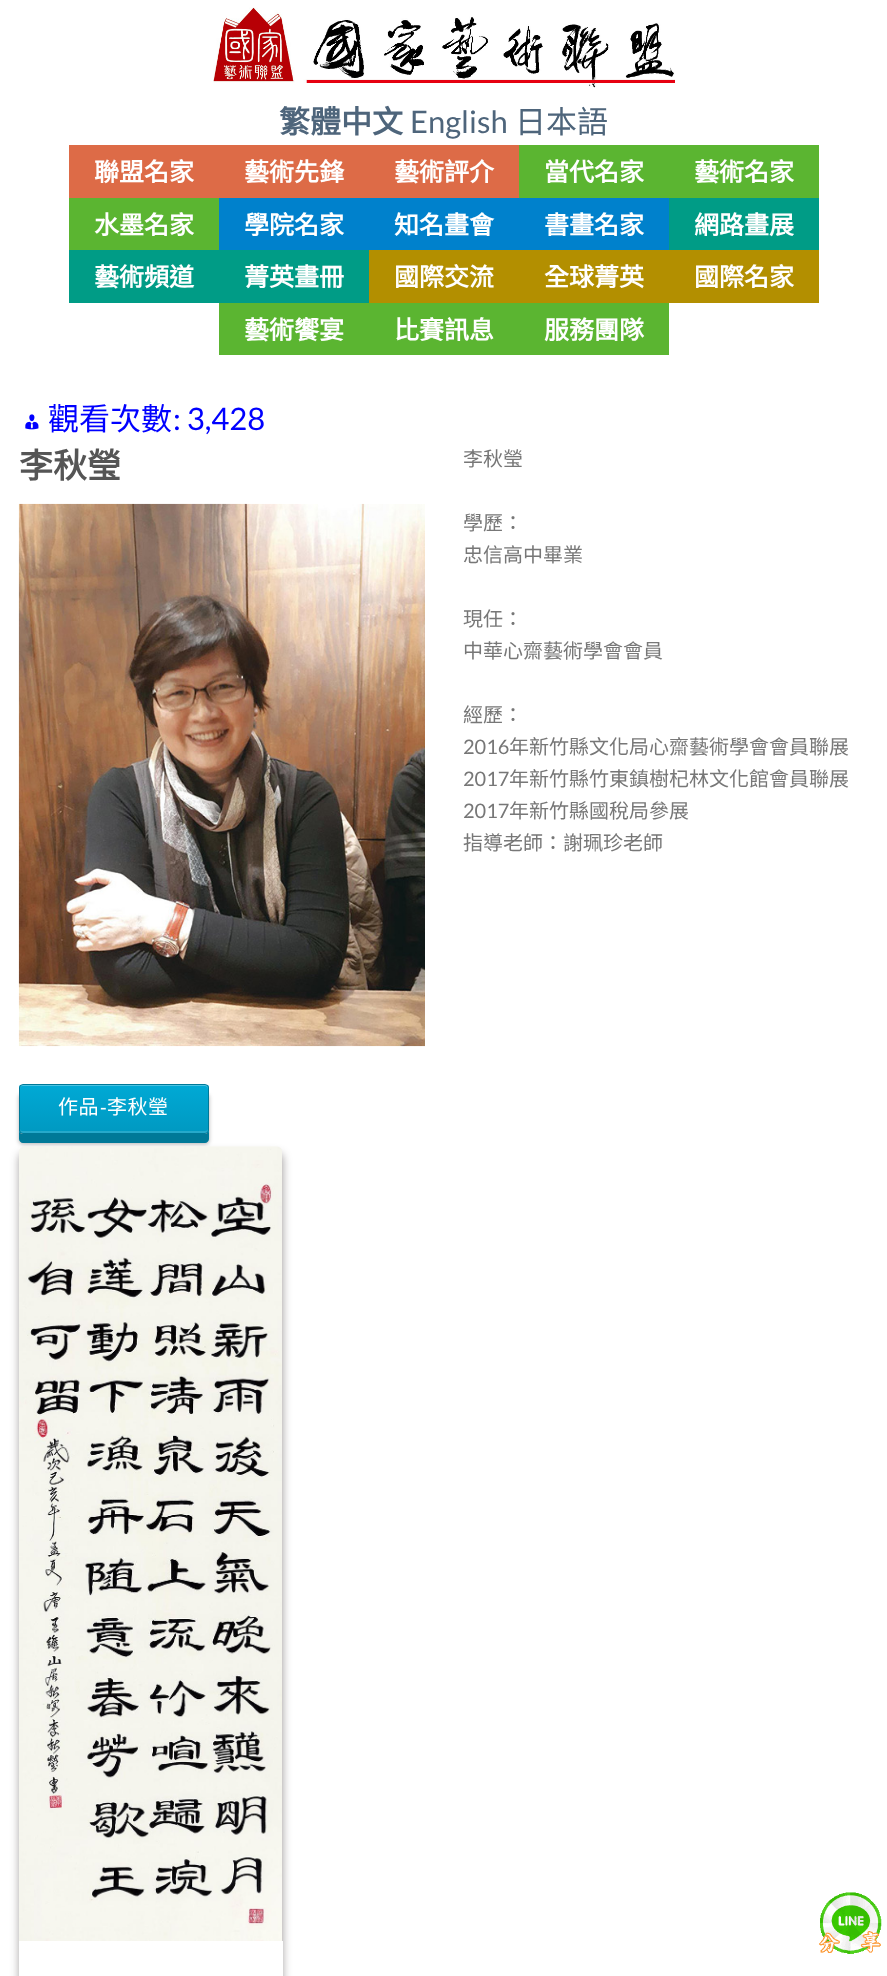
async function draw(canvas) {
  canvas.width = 887
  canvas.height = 1976
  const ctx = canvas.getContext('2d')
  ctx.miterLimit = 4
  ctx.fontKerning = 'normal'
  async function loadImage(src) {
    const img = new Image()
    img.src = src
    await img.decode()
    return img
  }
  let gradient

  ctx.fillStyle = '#fff'
  ctx.fillRect(0, 0, 887, 1976)
  ctx.drawImage(await loadImage('image0.png'), 213, 7, 462, 81)
  ctx.font = 'bold 31px Noto Sans CJK TC'
  ctx.fillStyle = '#4e657b'
  ctx.fillText('繁體中文', 279, 133)
  ctx.font = '31px Lato'
  ctx.fillText('English', 410, 133)
  ctx.font = '31px Noto Sans CJK TC'
  ctx.fillText('日本語', 515, 133)
  ctx.fillStyle = '#dd6b47'
  ctx.fillRect(69, 145, 450, 53)
  ctx.font = 'bold 25px Noto Sans CJK TC'
  ctx.fillStyle = '#fff'
  ctx.fillText('聯盟名家', 94, 181)
  ctx.fillText('藝術先鋒', 244, 181)
  ctx.fillText('藝術評介', 394, 181)
  ctx.fillStyle = '#5bb531'
  ctx.fillRect(519, 145, 300, 53)
  ctx.fillStyle = '#fff'
  ctx.fillText('當代名家', 544, 181)
  ctx.fillText('藝術名家', 694, 181)
  ctx.fillStyle = '#5bb531'
  ctx.fillRect(69, 198, 150, 52)
  ctx.fillStyle = '#fff'
  ctx.fillText('水墨名家', 94, 234)
  ctx.fillStyle = '#0081cc'
  ctx.fillRect(219, 198, 450, 52)
  ctx.fillStyle = '#fff'
  ctx.fillText('學院名家', 244, 234)
  ctx.fillText('知名畫會', 394, 234)
  ctx.fillText('書畫名家', 544, 234)
  ctx.fillStyle = '#009c86'
  ctx.fillRect(669, 198, 150, 52)
  ctx.fillStyle = '#fff'
  ctx.fillText('網路畫展', 694, 234)
  ctx.fillStyle = '#009c86'
  ctx.fillRect(69, 250, 300, 53)
  ctx.fillStyle = '#fff'
  ctx.fillText('藝術頻道', 94, 286)
  ctx.fillText('菁英畫冊', 244, 286)
  ctx.fillStyle = '#b38f00'
  ctx.fillRect(369, 250, 450, 53)
  ctx.fillStyle = '#fff'
  ctx.fillText('國際交流', 394, 286)
  ctx.fillText('全球菁英', 544, 286)
  ctx.fillText('國際名家', 694, 286)
  ctx.fillStyle = '#5bb531'
  ctx.fillRect(219, 303, 450, 52)
  ctx.fillStyle = '#fff'
  ctx.fillText('藝術饗宴', 244, 339)
  ctx.fillText('比賽訊息', 394, 339)
  ctx.fillText('服務團隊', 544, 339)
  ctx.drawImage(await loadImage('image1.png'), 25, 414, 14, 16)
  ctx.font = '31px Noto Sans CJK TC'
  ctx.fillStyle = '#00f'
  ctx.fillText('觀看次數', 48, 430)
  ctx.font = '31px Lato'
  ctx.fillText(': 3,428', 173, 430)
  ctx.font = 'bold 34px Noto Sans CJK TC'
  ctx.fillStyle = '#555'
  ctx.fillText('李秋瑩', 19, 478)
  ctx.drawImage(await loadImage('image2.png'), 18, 503, 407, 544)
  ctx.font = '20px Noto Sans CJK TC'
  ctx.fillStyle = '#777'
  ctx.fillText('李秋瑩', 463, 466)
  ctx.fillText('學歷：', 463, 530)
  ctx.fillText('忠信高中畢業', 463, 562)
  ctx.fillText('現任：', 463, 626)
  ctx.fillText('中華心齋藝術學會會員', 463, 658)
  ctx.fillText('經歷：', 463, 722)
  ctx.font = '20px Lato'
  ctx.fillText('2016', 463, 754)
  ctx.font = '20px Noto Sans CJK TC'
  ctx.fillText('年新竹縣文化局心齋藝術學會會員聯展', 509, 754)
  ctx.font = '20px Lato'
  ctx.fillText('2017', 463, 786)
  ctx.font = '20px Noto Sans CJK TC'
  ctx.fillText('年新竹縣竹東鎮樹杞林文化館會員聯展', 509, 786)
  ctx.font = '20px Lato'
  ctx.fillText('2017', 463, 818)
  ctx.font = '20px Noto Sans CJK TC'
  ctx.fillText('年新竹縣國稅局參展', 509, 818)
  ctx.fillText('指導老師：謝珮珍老師', 463, 850)
  ctx.fillStyle = '#0000004d'
  ctx.filter = 'blur(2px)'
  ctx.beginPath()
  ctx.roundRect(19, 1094, 190, 50, 4)
  ctx.fill()
  ctx.filter = 'none'
  ctx.fillStyle = '#007998'
  ctx.beginPath()
  ctx.moveTo(19, 1131)
  ctx.lineTo(19, 1139)
  ctx.bezierCurveTo(19, 1141, 21, 1143, 23, 1143)
  ctx.lineTo(205, 1143)
  ctx.bezierCurveTo(207, 1143, 209, 1141, 209, 1139)
  ctx.lineTo(209, 1096)
  ctx.lineTo(209, 1130)
  ctx.bezierCurveTo(209, 1132, 207, 1134, 205, 1134)
  ctx.lineTo(22, 1134)
  ctx.bezierCurveTo(21, 1134, 20, 1133, 19, 1131)
  ctx.closePath()
  ctx.fill()
  ctx.save()
  ctx.beginPath()
  ctx.roundRect(19, 1084, 190, 50, 4)
  ctx.clip()
  gradient = ctx.createLinearGradient(114, 1085, 114, 1133)
  gradient.addColorStop(0, '#00a9d5')
  gradient.addColorStop(1, '#0099c1')
  ctx.fillStyle = gradient
  ctx.fillRect(19, 1085, 190, 48)
  ctx.restore()
  ctx.fillStyle = '#26a9cb'
  ctx.beginPath()
  ctx.moveTo(20, 1129)
  ctx.bezierCurveTo(20, 1131, 20, 1133, 22, 1133)
  ctx.lineTo(206, 1133)
  ctx.bezierCurveTo(208, 1133, 208, 1131, 208, 1129)
  ctx.bezierCurveTo(208, 1130, 206, 1131, 205, 1131)
  ctx.lineTo(22, 1131)
  ctx.bezierCurveTo(21, 1131, 20, 1130, 20, 1129)
  ctx.closePath()
  ctx.fill()
  ctx.fillStyle = '#4dc3e2'
  ctx.beginPath()
  ctx.moveTo(22, 1086)
  ctx.lineTo(205, 1086)
  ctx.bezierCurveTo(206, 1086, 208, 1087, 208, 1089)
  ctx.bezierCurveTo(208, 1087, 208, 1085, 206, 1085)
  ctx.lineTo(22, 1085)
  ctx.bezierCurveTo(20, 1085, 20, 1087, 20, 1089)
  ctx.bezierCurveTo(20, 1087, 21, 1086, 22, 1086)
  ctx.closePath()
  ctx.fill()
  ctx.beginPath()
  ctx.roundRect(19.5, 1084.5, 189, 49, 3.5)
  ctx.strokeStyle = '#007998'
  ctx.stroke()
  ctx.letterSpacing = '0.5px'
  ctx.fillStyle = '#fff'
  ctx.fillText('作品', 58, 1114)
  ctx.font = '20px Liberation Sans'
  ctx.fillText('-', 100, 1114)
  ctx.font = '20px Noto Sans CJK TC'
  ctx.fillText('李秋瑩', 107, 1114)
  ctx.fillStyle = '#22191966'
  ctx.filter = 'blur(4.5px)'
  ctx.beginPath()
  ctx.roundRect(19, 1153, 264, 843, 6)
  ctx.fill()
  ctx.filter = 'none'
  ctx.drawImage(await loadImage('image3.png'), 19, 1146, 263, 795)
  ctx.fillStyle = '#fff'
  ctx.fillRect(19, 1941, 264, 35)
  ctx.drawImage(await loadImage('image4.png'), 819, 1892, 63, 62)
}

draw(document.querySelector('canvas'))
